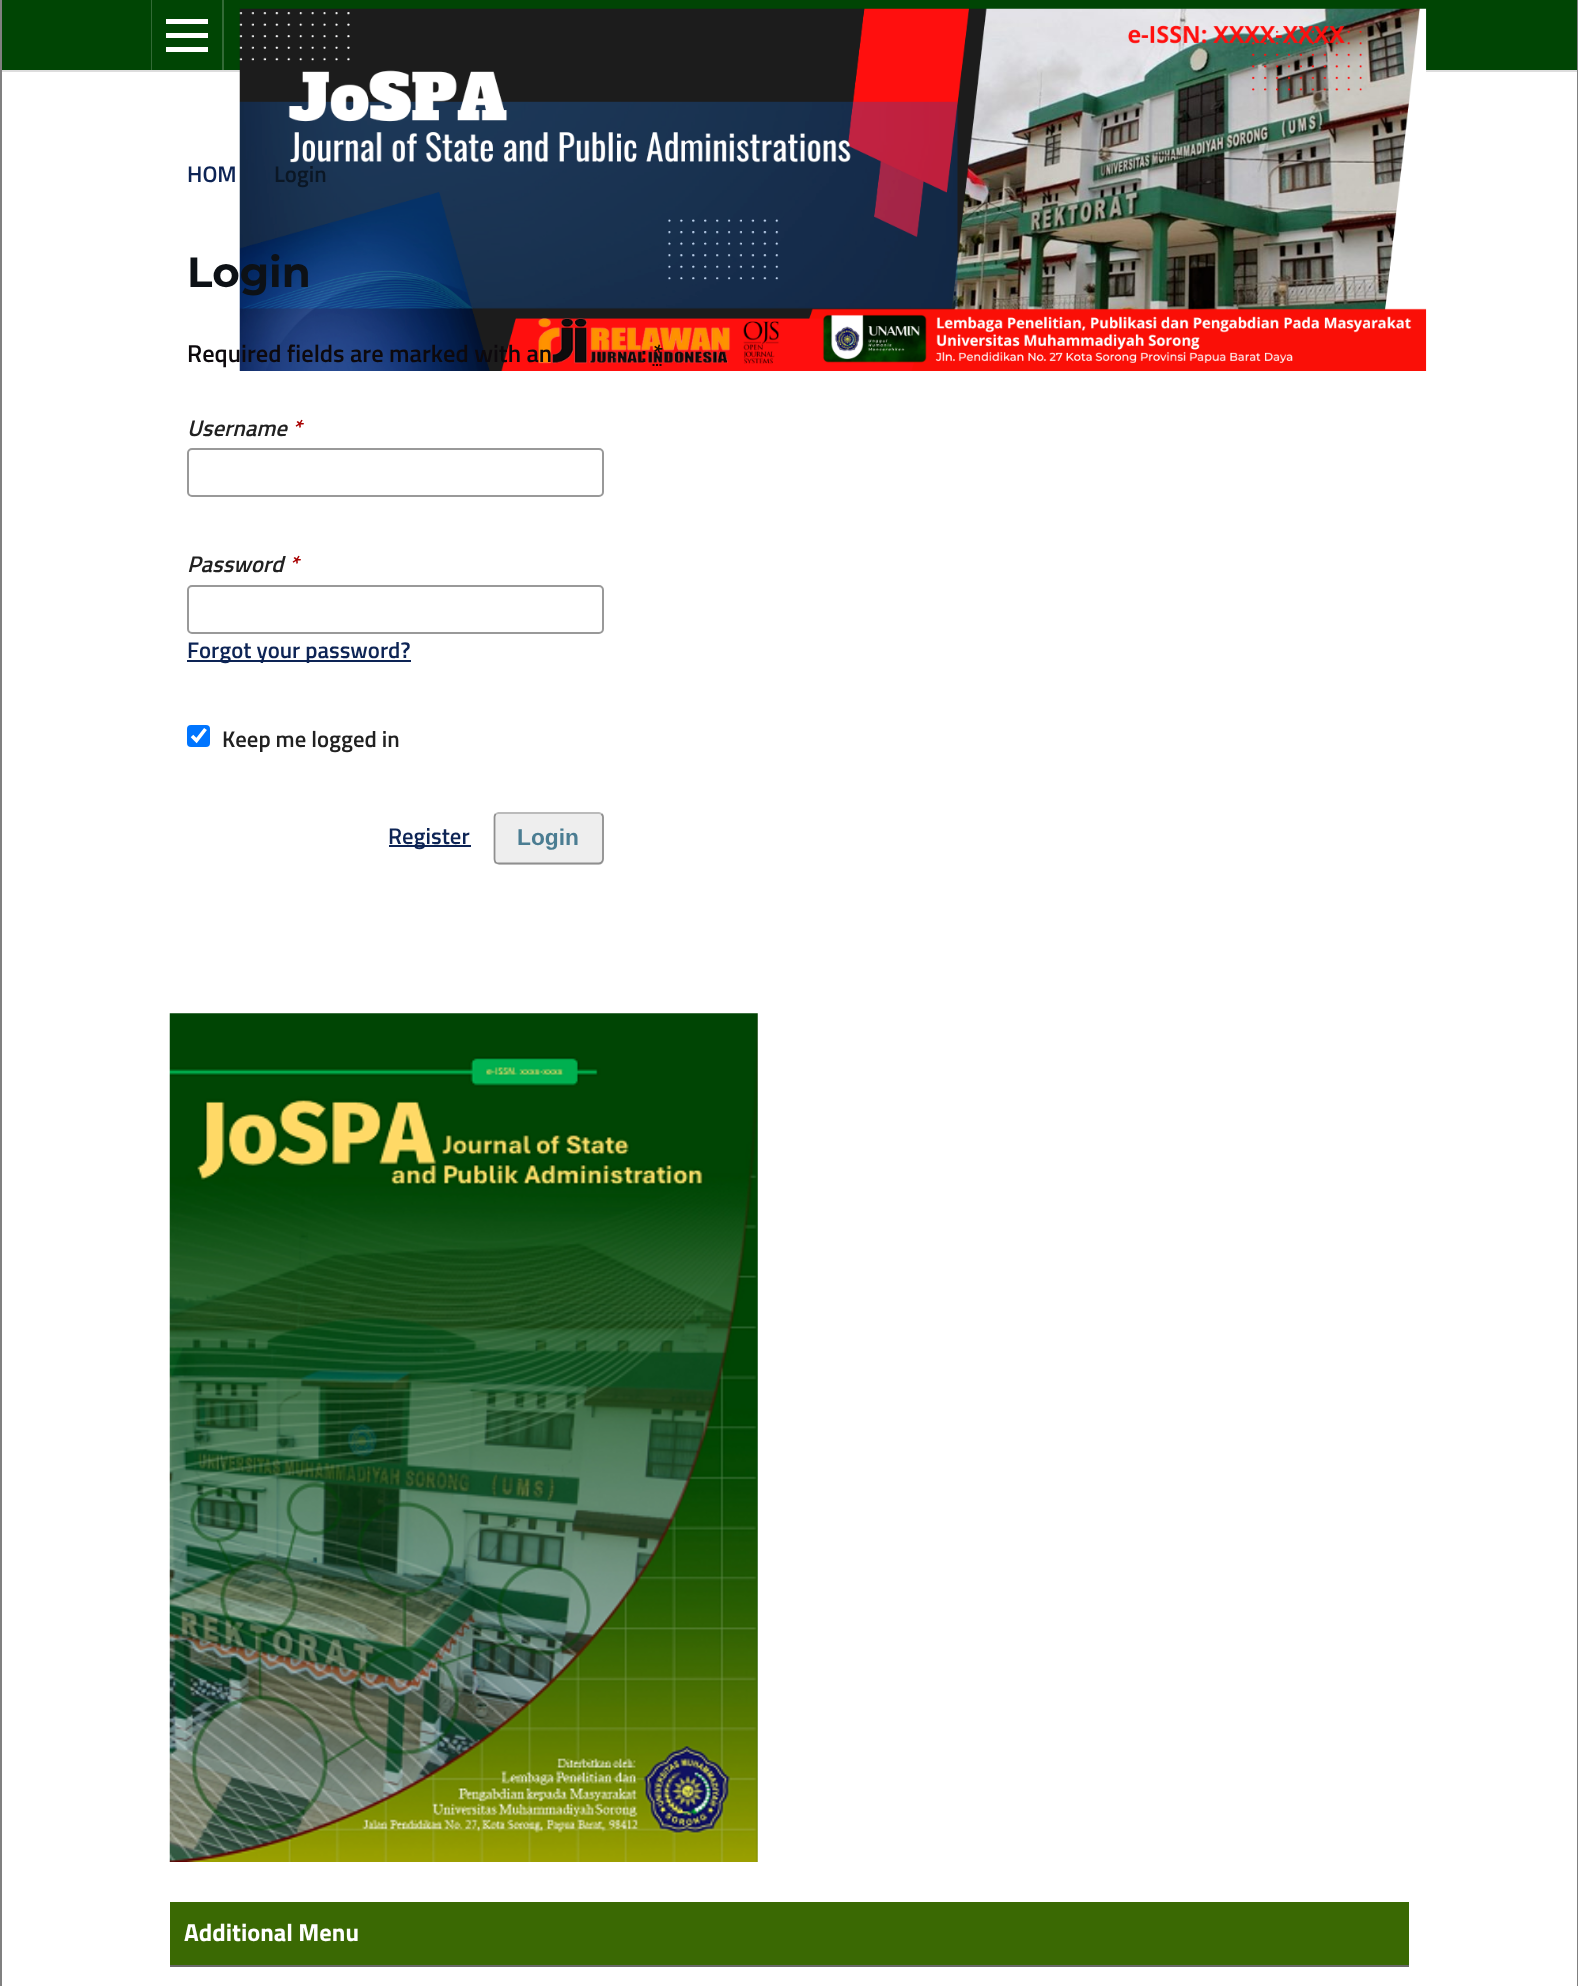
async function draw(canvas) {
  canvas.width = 1578
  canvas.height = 1986
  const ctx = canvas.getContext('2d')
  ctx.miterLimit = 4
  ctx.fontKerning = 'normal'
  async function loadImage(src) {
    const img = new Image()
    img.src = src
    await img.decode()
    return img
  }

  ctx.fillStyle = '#fff'
  ctx.fillRect(0, 0, 1578, 1986)
  ctx.fillStyle = '#808080'
  ctx.fillRect(1577, 0, 1, 1986)
  ctx.fillRect(0, 0, 2, 1986)
  ctx.fillStyle = '#004504'
  ctx.fillRect(2, 0, 1575, 70)
  ctx.fillStyle = '#ddd'
  ctx.fillRect(2, 70, 1575, 2)
  ctx.fillStyle = '#336a36'
  ctx.fillRect(151, 0, 1, 70)
  ctx.fillRect(222, 0, 2, 70)
  ctx.fillStyle = '#fff'
  ctx.fillRect(166, 47, 42, 5)
  ctx.fillRect(166, 19, 42, 5)
  ctx.fillRect(166, 33, 42, 5)
  ctx.drawImage(await loadImage('image0.png'), 239, 8, 1188, 363)
  ctx.font = '500 22.75px Sunflower'
  ctx.fillStyle = '#0d2455'
  ctx.fillText('HOM', 187, 182)
  ctx.fillStyle = '#0b1725'
  ctx.fillText('Login', 274, 182)
  ctx.font = 'bold 42px Montserrat'
  ctx.fillStyle = '#0d1116'
  ctx.fillText('Login', 187, 287)
  ctx.font = '500 24.5px Sunflower'
  ctx.fillStyle = '#0d090d'
  ctx.fillText('Required fields are marked with an', 187, 362)
  ctx.fillStyle = '#200d02'
  ctx.fillText('*', 653, 362)
  ctx.beginPath()
  ctx.moveTo(652.5, 365)
  ctx.lineTo(654.5, 365)
  ctx.moveTo(656, 365)
  ctx.lineTo(658, 365)
  ctx.moveTo(659.5, 365)
  ctx.lineTo(661.5, 365)
  ctx.strokeStyle = '#210202'
  ctx.lineWidth = 1.8
  ctx.stroke()
  ctx.fillStyle = '#0d090d'
  ctx.fillText(':', 641, 362)
  ctx.font = 'italic 500 22.75px Sunflower'
  ctx.fillStyle = '#212121'
  ctx.fillText('Username', 187, 436)
  ctx.fillStyle = '#a80000'
  ctx.fillText('*', 292, 436)
  ctx.beginPath()
  ctx.roundRect(188, 449, 415, 47, 4)
  ctx.strokeStyle = '#999'
  ctx.lineWidth = 2
  ctx.stroke()
  ctx.fillStyle = '#212121'
  ctx.fillText('Password', 187, 572)
  ctx.fillStyle = '#a80000'
  ctx.fillText('*', 289, 572)
  ctx.beginPath()
  ctx.roundRect(188, 586, 415, 47, 4)
  ctx.stroke()
  ctx.fillStyle = '#0d2455'
  ctx.fillRect(187, 660, 224, 2)
  ctx.font = '500 22.75px Sunflower'
  ctx.fillText('Forgot your password?', 187, 658)
  ctx.fillStyle = '#0075ff'
  ctx.beginPath()
  ctx.roundRect(187, 725, 23, 22, 4)
  ctx.fill()
  ctx.beginPath()
  ctx.moveTo(192, 736)
  ctx.lineTo(196.5, 740.5)
  ctx.lineTo(205.5, 729)
  ctx.strokeStyle = '#fff'
  ctx.lineWidth = 3.6
  ctx.stroke()
  ctx.fillStyle = '#212121'
  ctx.fillText('Keep me logged in', 222, 747)
  ctx.fillStyle = '#0d2455'
  ctx.fillRect(389, 845, 82, 2)
  ctx.fillText('Register', 388, 844)
  ctx.fillStyle = '#eee'
  ctx.beginPath()
  ctx.roundRect(494, 812, 110, 53, 5)
  ctx.fill()
  ctx.beginPath()
  ctx.moveTo(495.5, 814)
  ctx.lineTo(498.5, 813)
  ctx.lineTo(599, 813)
  ctx.lineTo(601.5, 814)
  ctx.strokeStyle = '#bbb'
  ctx.lineWidth = 1.8
  ctx.stroke()
  ctx.beginPath()
  ctx.moveTo(601.5, 814)
  ctx.bezierCurveTo(602.5, 815, 603, 816, 603, 817)
  ctx.lineTo(603, 859)
  ctx.bezierCurveTo(603, 860.5, 602.5, 861.5, 601.5, 862.5)
  ctx.bezierCurveTo(601, 863, 599.5, 863.5, 598.5, 863.5)
  ctx.lineTo(499, 863.5)
  ctx.bezierCurveTo(497.5, 863.5, 496.5, 863, 495.5, 862.5)
  ctx.bezierCurveTo(495, 861.5, 494.5, 860.5, 494.5, 859)
  ctx.lineTo(494.5, 817)
  ctx.bezierCurveTo(494.5, 816, 495, 815, 495.5, 814)
  ctx.strokeStyle = '#00000066'
  ctx.stroke()
  ctx.font = 'bold 22.75px Liberation Sans'
  ctx.fillStyle = '#4b7d92'
  ctx.fillText('Login', 517, 845)
  ctx.drawImage(await loadImage('image1.png'), 169, 1013, 589, 849)
  ctx.fillStyle = '#3a6903'
  ctx.fillRect(170, 1902, 1239, 63)
  ctx.fillStyle = '#696969'
  ctx.fillRect(170, 1965, 1239, 2)
  ctx.font = 'bold 24.5px Sunflower'
  ctx.fillStyle = '#fff'
  ctx.fillText('Additional Menu', 184, 1941)
}

draw(document.querySelector('canvas'))
